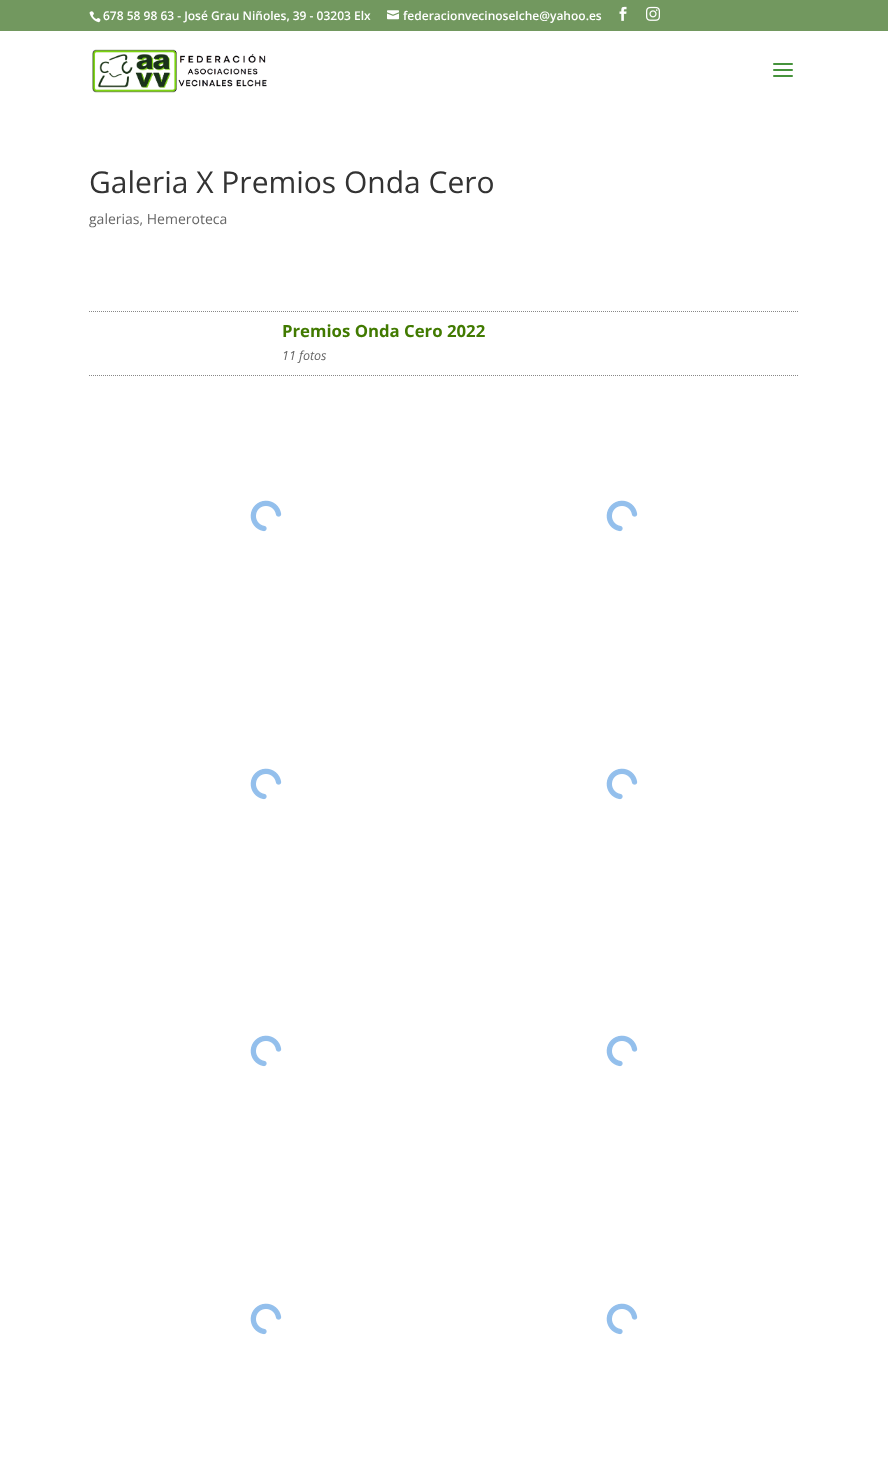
async function draw(canvas) {
  canvas.width = 888
  canvas.height = 1466
  const ctx = canvas.getContext('2d')
  ctx.miterLimit = 4
  ctx.fontKerning = 'normal'
  async function loadImage(src) {
    const img = new Image()
    img.src = src
    await img.decode()
    return img
  }

  ctx.fillStyle = '#fff'
  ctx.fillRect(0, 0, 888, 1466)
  ctx.fillStyle = '#72985f'
  ctx.fillRect(0, 0, 888, 31)
  ctx.drawImage(await loadImage('image0.png'), 89, 11, 12, 12)
  ctx.font = '600 12px Open Sans'
  ctx.fillStyle = '#fff'
  ctx.fillText('678 58 98 63 - José Grau Niñoles, 39 - 03203 Elx', 103, 20)
  ctx.drawImage(await loadImage('image1.png'), 387, 10, 12, 10)
  ctx.fillText('federacionvecinoselche@yahoo.es', 403, 20)
  ctx.drawImage(await loadImage('image2.png'), 619, 6, 8, 15)
  ctx.drawImage(await loadImage('image3.png'), 646, 6, 14, 15)
  ctx.drawImage(await loadImage('image4.png'), 92, 49, 175, 44)
  ctx.drawImage(await loadImage('image5.png'), 773, 63, 20, 14)
  ctx.font = '30px Open Sans'
  ctx.fillStyle = '#333'
  ctx.fillText('Galeria X Premios Onda Cero', 89, 193)
  ctx.font = '14px Open Sans'
  ctx.fillStyle = '#666'
  ctx.fillText('galerias, Hemeroteca', 89, 224)
  ctx.beginPath()
  ctx.moveTo(89, 311.5)
  ctx.lineTo(799, 311.5)
  ctx.strokeStyle = '#888'
  ctx.setLineDash([1, 1])
  ctx.stroke()
  ctx.beginPath()
  ctx.moveTo(89, 375.5)
  ctx.lineTo(799, 375.5)
  ctx.stroke()
  ctx.font = 'bold 16.75px Open Sans'
  ctx.fillStyle = '#417a00'
  ctx.fillText('Premios Onda Cero 2022', 282, 337)
  ctx.font = 'italic 12.5px Open Sans'
  ctx.fillStyle = '#666'
  ctx.fillText('11 fotos', 282, 360)
  ctx.drawImage(await loadImage('image6.png'), 250, 500, 32, 32)
  ctx.drawImage(await loadImage('image6.png'), 606, 500, 32, 32)
  ctx.drawImage(await loadImage('image6.png'), 250, 768, 32, 32)
  ctx.drawImage(await loadImage('image6.png'), 606, 768, 32, 32)
  ctx.drawImage(await loadImage('image6.png'), 250, 1035, 32, 32)
  ctx.drawImage(await loadImage('image6.png'), 606, 1035, 32, 32)
  ctx.drawImage(await loadImage('image6.png'), 250, 1303, 32, 32)
  ctx.drawImage(await loadImage('image6.png'), 606, 1303, 32, 32)
}

draw(document.querySelector('canvas'))
